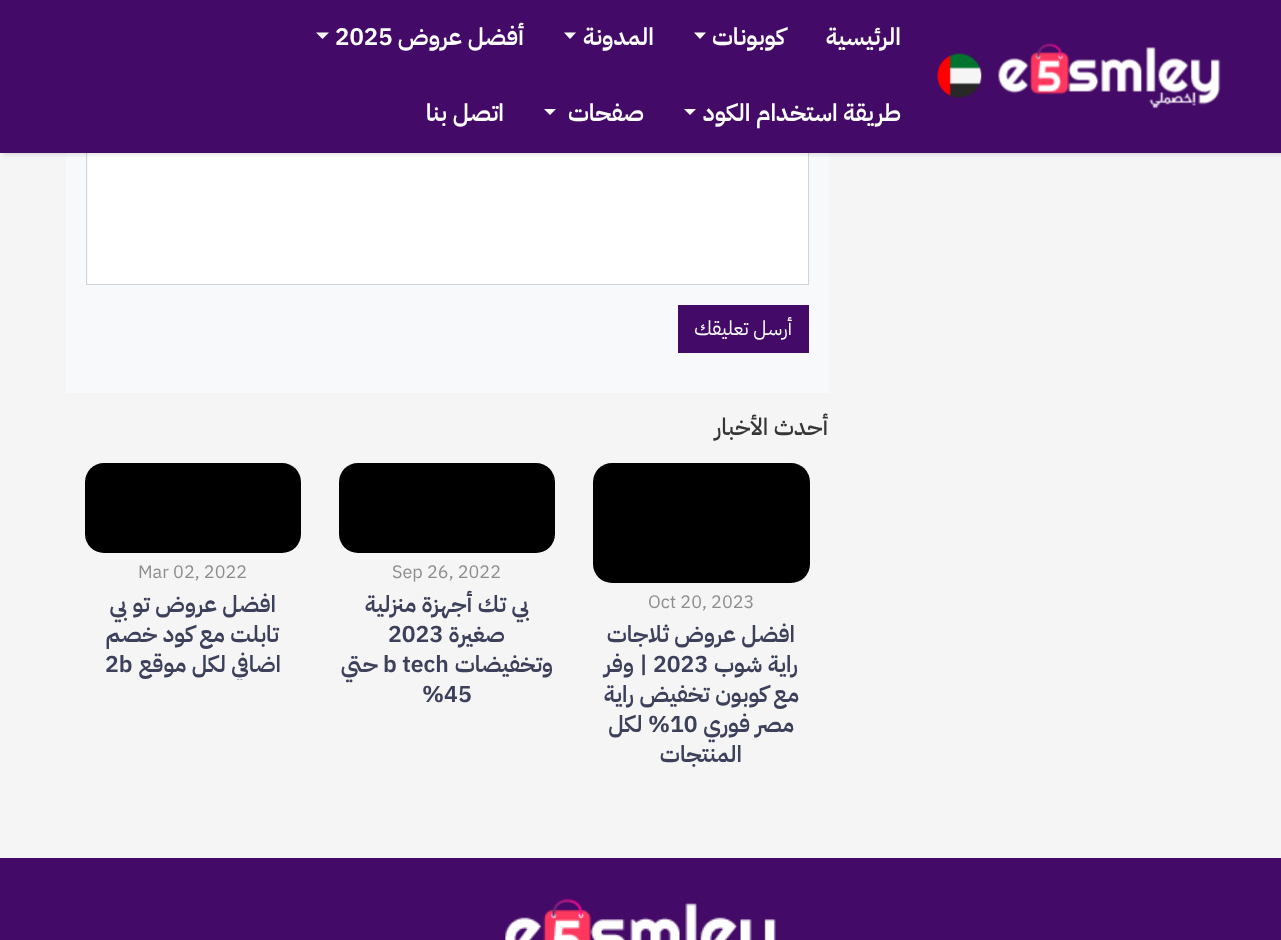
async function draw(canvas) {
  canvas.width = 1281
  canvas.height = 940
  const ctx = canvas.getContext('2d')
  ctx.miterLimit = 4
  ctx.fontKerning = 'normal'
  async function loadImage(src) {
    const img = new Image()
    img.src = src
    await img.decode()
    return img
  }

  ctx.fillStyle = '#f5f5f5'
  ctx.fillRect(0, 0, 1281, 940)
  ctx.fillStyle = '#f8f9fa'
  ctx.fillRect(66, 153, 763, 240)
  ctx.fillStyle = '#fff'
  ctx.fillRect(88, 153, 720, 131)
  ctx.strokeStyle = '#ced4da'
  ctx.strokeRect(86.5, 88.5, 722, 196)
  ctx.fillStyle = '#0000001a'
  ctx.filter = 'blur(2px)'
  ctx.beginPath()
  ctx.rect(3, 3, 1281, 152)
  ctx.fill()
  ctx.filter = 'none'
  ctx.fillStyle = '#440a67'
  ctx.fillRect(0, 0, 1281, 153)
  ctx.drawImage(await loadImage('image0.png'), 998, 43, 223, 66)
  ctx.drawImage(await loadImage('image1.png'), 937, 53, 45, 45)
  ctx.direction = 'rtl'
  ctx.font = '600 24px IBM Plex Sans Arabic'
  ctx.fillStyle = '#fff'
  ctx.fillText('الرئيسية', 901, 45)
  ctx.fillText('كوبونات', 785, 45)
  ctx.beginPath()
  ctx.moveTo(694, 32.5)
  ctx.lineTo(706, 32.5)
  ctx.lineTo(700, 39)
  ctx.closePath()
  ctx.fill()
  ctx.fillText('المدونة', 654, 45)
  ctx.beginPath()
  ctx.moveTo(564, 32.5)
  ctx.lineTo(576, 32.5)
  ctx.lineTo(570, 39)
  ctx.closePath()
  ctx.fill()
  ctx.fillText('أفضل عروض', 524, 45)
  ctx.direction = 'ltr'
  ctx.fillText('2025', 335, 45)
  ctx.beginPath()
  ctx.moveTo(316, 32.5)
  ctx.lineTo(329, 32.5)
  ctx.lineTo(322.5, 39)
  ctx.closePath()
  ctx.fill()
  ctx.direction = 'rtl'
  ctx.fillText('طريقة استخدام الكود', 901, 121)
  ctx.beginPath()
  ctx.moveTo(684, 109)
  ctx.lineTo(696, 109)
  ctx.lineTo(690, 115)
  ctx.closePath()
  ctx.fill()
  ctx.fillText('صفحات', 644, 121)
  ctx.beginPath()
  ctx.moveTo(544, 109)
  ctx.lineTo(556, 109)
  ctx.lineTo(550, 115)
  ctx.closePath()
  ctx.fill()
  ctx.fillText('اتصل بنا', 504, 121)
  ctx.fillStyle = '#440a67'
  ctx.fillRect(678, 305, 131, 48)
  ctx.font = '20px IBM Plex Sans Arabic'
  ctx.fillStyle = '#fff'
  ctx.fillText('أرسل تعليقك', 792, 335)
  ctx.font = '500 23.5px IBM Plex Sans Arabic'
  ctx.fillStyle = '#353535'
  ctx.fillText('أحدث الأخبار', 828, 435)
  ctx.fillStyle = '#000'
  ctx.beginPath()
  ctx.roundRect(593, 463, 217, 120, 19)
  ctx.fill()
  ctx.direction = 'ltr'
  ctx.font = '18px IBM Plex Sans Arabic'
  ctx.fillStyle = '#8d8d8d'
  ctx.fillText('Oct 20, 2023', 648, 608)
  ctx.direction = 'rtl'
  ctx.font = '600 23px IBM Plex Sans Arabic'
  ctx.fillStyle = '#3c405a'
  ctx.fillText('افضل عروض ثلاجات', 795, 642)
  ctx.fillText('راية شوب', 798, 672)
  ctx.direction = 'ltr'
  ctx.fillText('2023', 653, 672)
  ctx.direction = 'rtl'
  ctx.fillText('| وفر', 648, 672)
  ctx.fillText('مع كوبون تخفيض راية', 799, 702)
  ctx.fillText('مصر فوري', 794, 732)
  ctx.direction = 'ltr'
  ctx.fillText('10', 670, 732)
  ctx.direction = 'rtl'
  ctx.fillText('% لكل', 670, 732)
  ctx.fillText('المنتجات', 742, 762)
  ctx.fillStyle = '#000'
  ctx.beginPath()
  ctx.roundRect(339, 463, 216, 90, 19)
  ctx.fill()
  ctx.direction = 'ltr'
  ctx.font = '18px IBM Plex Sans Arabic'
  ctx.fillStyle = '#8d8d8d'
  ctx.fillText('Sep 26, 2022', 392, 578)
  ctx.direction = 'rtl'
  ctx.font = '600 23px IBM Plex Sans Arabic'
  ctx.fillStyle = '#3c405a'
  ctx.fillText('بي تك أجهزة منزلية', 529, 612)
  ctx.fillText('صغيرة', 505, 642)
  ctx.direction = 'ltr'
  ctx.fillText('2023', 388, 642)
  ctx.direction = 'rtl'
  ctx.fillText('وتخفيضات', 553, 672)
  ctx.direction = 'ltr'
  ctx.fillText('b tech', 383, 672)
  ctx.direction = 'rtl'
  ctx.fillText('حتي', 378, 672)
  ctx.direction = 'ltr'
  ctx.fillText('%45', 422, 702)
  ctx.fillStyle = '#000'
  ctx.beginPath()
  ctx.roundRect(85, 463, 216, 90, 19)
  ctx.fill()
  ctx.font = '18px IBM Plex Sans Arabic'
  ctx.fillStyle = '#8d8d8d'
  ctx.fillText('Mar 02, 2022', 138, 578)
  ctx.direction = 'rtl'
  ctx.font = '600 23px IBM Plex Sans Arabic'
  ctx.fillStyle = '#3c405a'
  ctx.fillText('افضل عروض تو بي', 276, 612)
  ctx.fillText('تابلت مع كود خصم', 279, 642)
  ctx.save()
  ctx.beginPath()
  ctx.rect(85, 463, 216, 217)
  ctx.clip()
  ctx.fillText('اضافي لكل موقع', 281, 672)
  ctx.restore()
  ctx.direction = 'ltr'
  ctx.fillText('2b', 105, 672)
  ctx.fillStyle = '#440a67'
  ctx.fillRect(0, 858, 1281, 82)
  ctx.drawImage(await loadImage('image2.png'), 505, 898, 271, 42)
}

draw(document.querySelector('canvas'))
